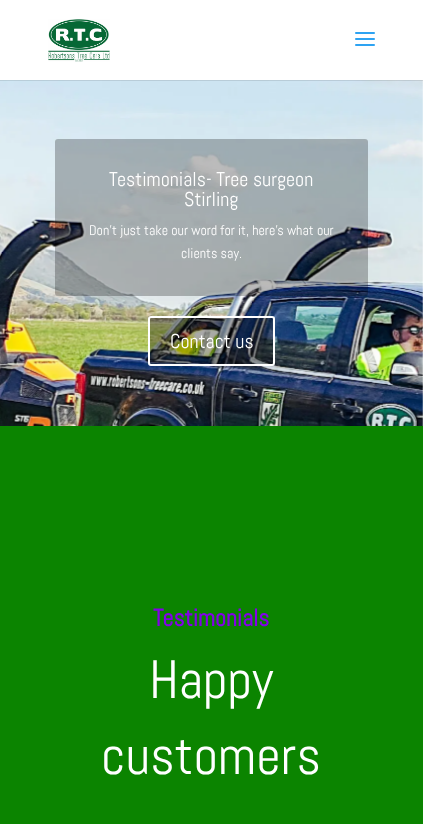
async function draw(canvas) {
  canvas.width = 423
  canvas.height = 824
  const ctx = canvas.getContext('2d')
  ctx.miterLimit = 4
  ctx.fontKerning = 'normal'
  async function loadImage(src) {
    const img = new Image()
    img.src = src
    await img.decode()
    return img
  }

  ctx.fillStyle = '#fff'
  ctx.fillRect(0, 0, 423, 824)
  ctx.drawImage(await loadImage('image2.png'), 0, 80, 423, 346)
  ctx.fillStyle = '#0000001a'
  ctx.fillRect(0, 80, 423, 1)
  ctx.drawImage(await loadImage('image0.png'), 48, 19, 62, 43)
  ctx.drawImage(await loadImage('image1.png'), 355, 32, 20, 14)
  ctx.fillStyle = '#00000042'
  ctx.beginPath()
  ctx.roundRect(55, 139, 313, 157, 3)
  ctx.fill()
  ctx.font = '20px Abel'
  ctx.fillStyle = '#fff'
  ctx.fillText('Testimonials- Tree surgeon', 109, 186)
  ctx.fillText('Stirling', 184, 206)
  ctx.font = '14px Abel'
  ctx.fillText('Don’t just take our word for it, here’s what our', 89, 235)
  ctx.fillText('clients say.', 181, 258)
  ctx.fillStyle = '#00000052'
  ctx.beginPath()
  ctx.roundRect(149, 317, 125, 48, 2)
  ctx.fill()
  ctx.strokeStyle = '#fff'
  ctx.lineWidth = 2
  ctx.stroke()
  ctx.font = '20px Abel'
  ctx.fillStyle = '#fff'
  ctx.fillText('Contact us', 170, 348)
  ctx.fillStyle = '#0b8400'
  ctx.fillRect(0, 426, 423, 398)
  ctx.font = 'bold 24px Abel'
  ctx.fillStyle = '#8300e9'
  ctx.fillText('Testimonials', 153, 626)
  ctx.font = '54px Abel'
  ctx.fillStyle = '#fff'
  ctx.fillText('Happy', 149, 698)
  ctx.fillText('customers', 101, 774)
}

draw(document.querySelector('canvas'))
